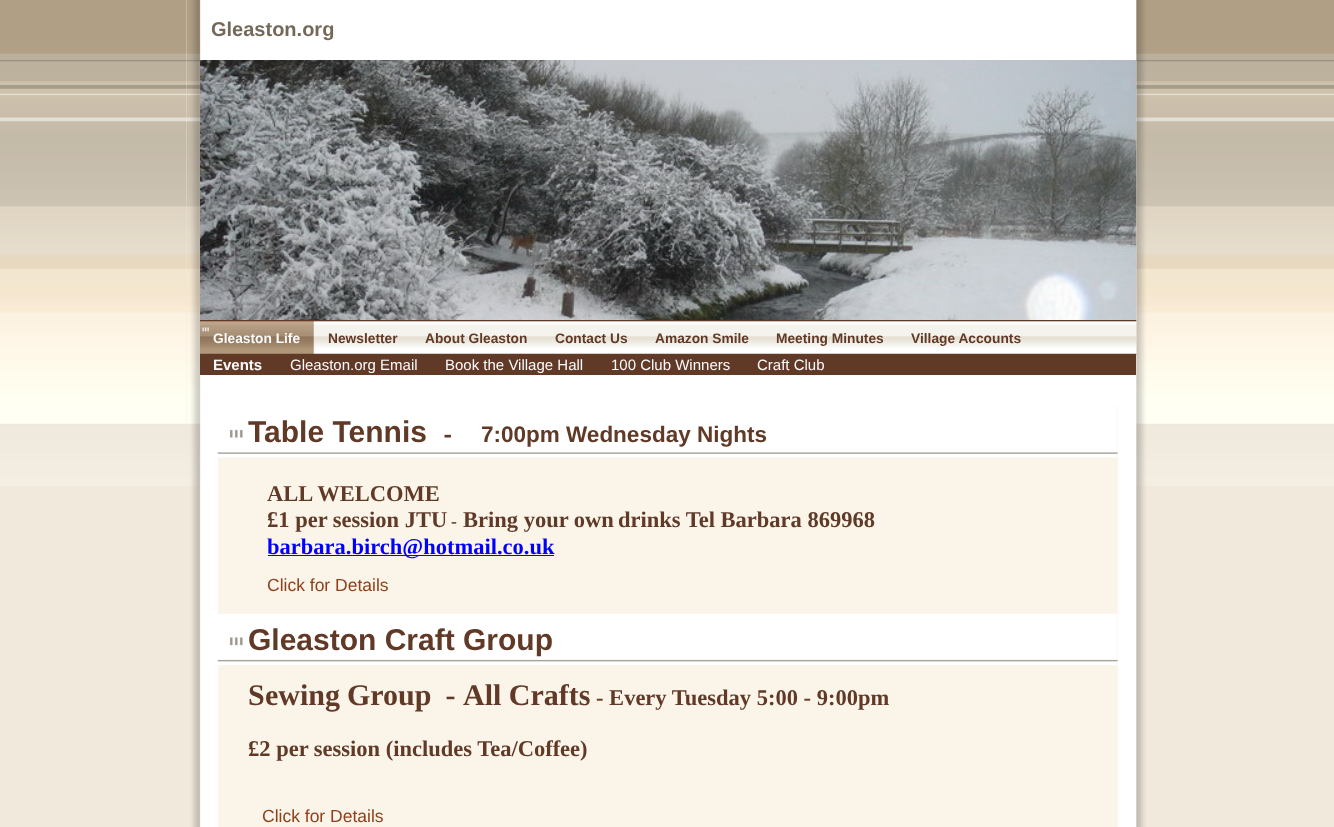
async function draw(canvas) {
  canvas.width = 1334
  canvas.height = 827
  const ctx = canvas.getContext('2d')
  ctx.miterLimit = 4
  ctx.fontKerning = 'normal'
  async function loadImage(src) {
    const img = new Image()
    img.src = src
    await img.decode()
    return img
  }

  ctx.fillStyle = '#f1e9db'
  ctx.fillRect(0, 0, 1334, 827)
  ctx.drawImage(await loadImage('image0.png'), 0, 0, 1334, 486)
  ctx.drawImage(await loadImage('image1.png'), 186, 0, 964, 827)
  ctx.drawImage(await loadImage('image2.png'), 186, 0, 964, 314)
  ctx.font = 'bold 20px Liberation Sans'
  ctx.fillStyle = '#746859'
  ctx.fillText('Gleaston.org', 211, 36)
  ctx.drawImage(await loadImage('image4.png'), 186, 314, 964, 172)
  ctx.drawImage(await loadImage('image3.png'), 200, 60, 937, 260)
  ctx.drawImage(await loadImage('image5.png'), 200, 320, 937, 35)
  ctx.drawImage(await loadImage('image6.png'), 200, 321, 114, 33)
  ctx.font = 'bold 13.75px Liberation Sans'
  ctx.fillStyle = '#fbfbfb'
  ctx.fillText('Gleaston Life', 213, 343)
  ctx.fillStyle = '#613927'
  ctx.fillText('Newsletter', 328, 343)
  ctx.fillText('About Gleaston', 425, 343)
  ctx.fillText('Contact Us', 555, 343)
  ctx.fillText('Amazon Smile', 655, 343)
  ctx.fillText('Meeting Minutes', 776, 343)
  ctx.fillText('Village Accounts', 911, 343)
  ctx.fillRect(200, 355, 936, 20)
  ctx.font = 'bold 15px Liberation Sans'
  ctx.fillStyle = '#fbfbfb'
  ctx.fillText('Events', 213, 370)
  ctx.font = '15px Liberation Sans'
  ctx.fillText('Gleaston.org Email', 290, 370)
  ctx.fillText('Book the Village Hall', 445, 370)
  ctx.fillText('100 Club Winners', 611, 370)
  ctx.fillText('Craft Club', 757, 370)
  ctx.fillStyle = '#faf4e9'
  ctx.fillRect(218, 406, 900, 421)
  ctx.drawImage(await loadImage('image7.png'), 217, 406, 901, 52)
  ctx.font = 'bold 30px Liberation Sans'
  ctx.fillStyle = '#613927'
  ctx.fillText('Table Tennis', 248, 442)
  ctx.font = 'bold 22.5px Liberation Mono'
  ctx.fillText('-', 441, 442)
  ctx.font = 'bold 22.5px Liberation Sans'
  ctx.fillText('7:00pm Wednesday Nights', 481, 442)
  ctx.font = 'bold 22.5px Liberation Serif'
  ctx.fillText('ALL WELCOME', 267, 501)
  ctx.fillText('£1 per session JTU', 267, 527)
  ctx.font = 'bold 17.5px Liberation Serif'
  ctx.fillText('-', 451, 527)
  ctx.font = 'bold 22.5px Liberation Serif'
  ctx.fillText('Bring your own', 463, 527)
  ctx.fillText('drinks Tel Barbara 869968', 618, 527)
  ctx.fillStyle = '#00f'
  ctx.fillRect(268, 555, 286, 1)
  ctx.fillText('barbara.birch@hotmail.co.uk', 267, 554)
  ctx.font = '17.5px Liberation Sans'
  ctx.fillStyle = '#8e411c'
  ctx.fillText('Click for Details', 267, 591)
  ctx.drawImage(await loadImage('image8.png'), 217, 613, 901, 52)
  ctx.font = 'bold 30px Liberation Sans'
  ctx.fillStyle = '#613927'
  ctx.fillText('Gleaston Craft Group', 248, 650)
  ctx.font = 'bold 30px Liberation Serif'
  ctx.fillText('S', 248, 705)
  ctx.wordSpacing = '-0.5px'
  ctx.fillText('ewing Group  -', 265, 705)
  ctx.wordSpacing = '0px'
  ctx.fillText('All Crafts', 463, 705)
  ctx.font = 'bold 22.5px Liberation Serif'
  ctx.fillText('- Every Tuesday 5:00 - 9:00pm', 596, 705)
  ctx.fillText('£2 per session (includes Tea/Coffee)', 248, 756)
  ctx.font = '17.5px Liberation Sans'
  ctx.fillStyle = '#8e411c'
  ctx.fillText('Click for Details', 262, 822)
}

draw(document.querySelector('canvas'))
